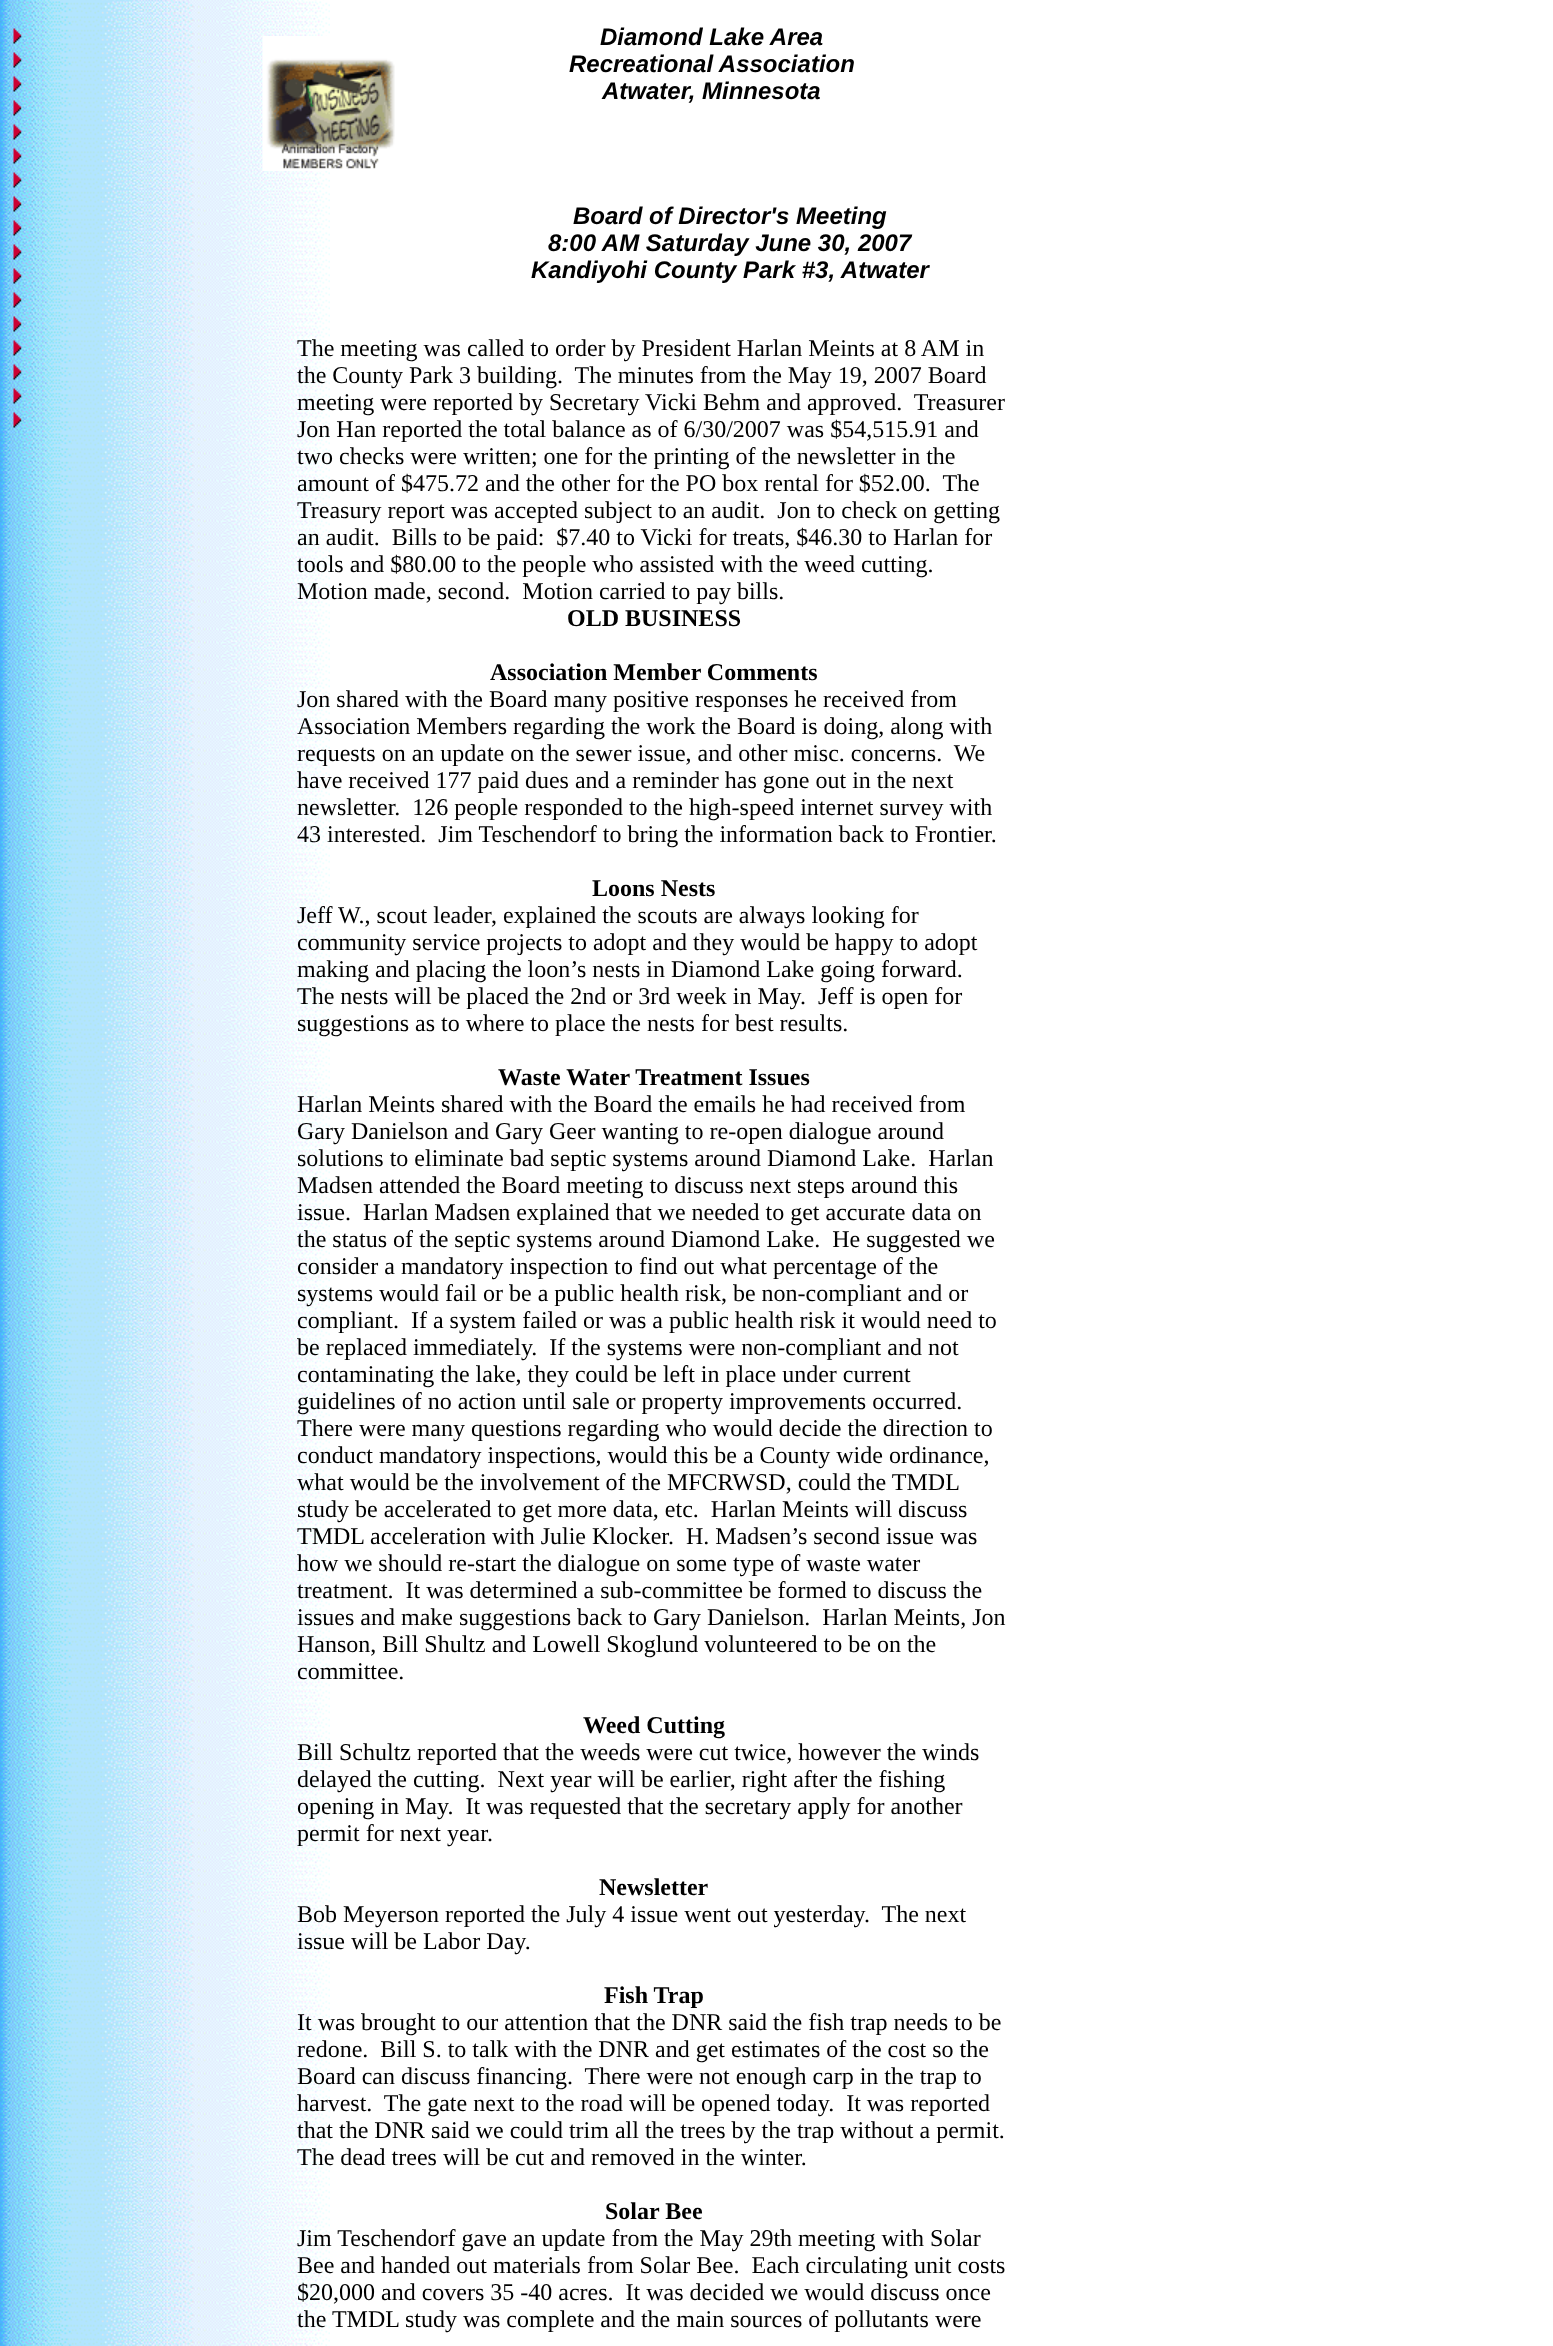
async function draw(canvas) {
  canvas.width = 1553
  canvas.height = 2346
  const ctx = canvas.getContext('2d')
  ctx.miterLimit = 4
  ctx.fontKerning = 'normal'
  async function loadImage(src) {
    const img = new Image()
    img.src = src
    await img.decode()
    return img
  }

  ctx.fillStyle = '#fff'
  ctx.fillRect(0, 0, 1553, 2346)
  ctx.drawImage(await loadImage('image0.png'), 0, 0, 330, 2346)
  ctx.drawImage(await loadImage('image1.png'), 13, 28, 9, 16)
  ctx.drawImage(await loadImage('image2.png'), 13, 52, 9, 16)
  ctx.drawImage(await loadImage('image3.png'), 13, 76, 9, 16)
  ctx.drawImage(await loadImage('image4.png'), 13, 100, 9, 16)
  ctx.drawImage(await loadImage('image5.png'), 13, 124, 9, 16)
  ctx.drawImage(await loadImage('image6.png'), 13, 148, 9, 16)
  ctx.drawImage(await loadImage('image7.png'), 13, 172, 9, 16)
  ctx.drawImage(await loadImage('image8.png'), 13, 196, 9, 16)
  ctx.drawImage(await loadImage('image9.png'), 13, 220, 9, 16)
  ctx.drawImage(await loadImage('image10.png'), 13, 244, 9, 16)
  ctx.drawImage(await loadImage('image11.png'), 13, 268, 9, 16)
  ctx.drawImage(await loadImage('image12.png'), 13, 292, 9, 16)
  ctx.drawImage(await loadImage('image13.png'), 13, 316, 9, 16)
  ctx.drawImage(await loadImage('image14.png'), 13, 340, 9, 16)
  ctx.drawImage(await loadImage('image15.png'), 13, 364, 9, 16)
  ctx.drawImage(await loadImage('image7.png'), 13, 388, 9, 16)
  ctx.drawImage(await loadImage('image8.png'), 13, 412, 9, 16)
  ctx.drawImage(await loadImage('image16.png'), 262, 36, 133, 135)
  ctx.font = 'italic bold 24px Liberation Sans'
  ctx.fillStyle = '#000'
  ctx.fillText('Diamond Lake Area', 600, 45)
  ctx.fillText('Recreational Association', 569, 72)
  ctx.fillText('Atwater, Minnesota', 602, 99)
  ctx.fillText('Board of Director\'s Meeting', 573, 224)
  ctx.fillText('8:00 AM Saturday June 30, 2007', 548, 251)
  ctx.fillText('Kandiyohi County Park #3, Atwater', 531, 278)
  ctx.font = '24px Liberation Serif'
  ctx.fillText('The meeting was called to order by President Harlan Meints at 8 AM in', 297, 356)
  ctx.fillText('the County Park 3 building.  The minutes from the May 19, 2007 Board', 297, 383)
  ctx.fillText('meeting were reported by Secretary Vicki Behm and approved.  Treasurer', 297, 410)
  ctx.fillText('Jon Han reported the total balance as of 6/30/2007 was $54,515.91 and', 297, 437)
  ctx.fillText('two checks were written; one for the printing of the newsletter in the', 297, 464)
  ctx.fillText('amount of $475.72 and the other for the PO box rental for $52.00.  The', 297, 491)
  ctx.fillText('Treasury report was accepted subject to an audit.  Jon to check on getting', 297, 518)
  ctx.fillText('an audit.  Bills to be paid:  $7.40 to Vicki for treats, $46.30 to Harlan for', 297, 545)
  ctx.fillText('tools and $80.00 to the people who assisted with the weed cutting.', 297, 572)
  ctx.fillText('Motion made, second.  Motion carried to pay bills.', 297, 599)
  ctx.font = 'bold 24px Liberation Serif'
  ctx.fillText('OLD BUSINESS', 567, 626)
  ctx.fillText('Association Member Comments', 490, 680)
  ctx.font = '24px Liberation Serif'
  ctx.fillText('Jon shared with the Board many positive responses he received from', 297, 707)
  ctx.fillText('Association Members regarding the work the Board is doing, along with', 297, 734)
  ctx.fillText('requests on an update on the sewer issue, and other misc. concerns.  We', 297, 761)
  ctx.fillText('have received 177 paid dues and a reminder has gone out in the next', 297, 788)
  ctx.fillText('newsletter.  126 people responded to the high-speed internet survey with', 297, 815)
  ctx.fillText('43 interested.  Jim Teschendorf to bring the information back to Frontier.', 297, 842)
  ctx.font = 'bold 24px Liberation Serif'
  ctx.fillText('Loons Nests', 592, 896)
  ctx.font = '24px Liberation Serif'
  ctx.fillText('Jeff W., scout leader, explained the scouts are always looking for', 297, 923)
  ctx.fillText('community service projects to adopt and they would be happy to adopt', 297, 950)
  ctx.fillText('making and placing the loon’s nests in Diamond Lake going forward.', 297, 977)
  ctx.fillText('The nests will be placed the 2nd or 3rd week in May.  Jeff is open for', 297, 1004)
  ctx.fillText('suggestions as to where to place the nests for best results.', 297, 1031)
  ctx.font = 'bold 24px Liberation Serif'
  ctx.fillText('Waste Water Treatment Issues', 498, 1085)
  ctx.font = '24px Liberation Serif'
  ctx.fillText('Harlan Meints shared with the Board the emails he had received from', 297, 1112)
  ctx.fillText('Gary Danielson and Gary Geer wanting to re-open dialogue around', 297, 1139)
  ctx.fillText('solutions to eliminate bad septic systems around Diamond Lake.  Harlan', 297, 1166)
  ctx.fillText('Madsen attended the Board meeting to discuss next steps around this', 297, 1193)
  ctx.fillText('issue.  Harlan Madsen explained that we needed to get accurate data on', 297, 1220)
  ctx.fillText('the status of the septic systems around Diamond Lake.  He suggested we', 297, 1247)
  ctx.fillText('consider a mandatory inspection to find out what percentage of the', 297, 1274)
  ctx.fillText('systems would fail or be a public health risk, be non-compliant and or', 297, 1301)
  ctx.fillText('compliant.  If a system failed or was a public health risk it would need to', 297, 1328)
  ctx.fillText('be replaced immediately.  If the systems were non-compliant and not', 297, 1355)
  ctx.fillText('contaminating the lake, they could be left in place under current', 297, 1382)
  ctx.fillText('guidelines of no action until sale or property improvements occurred.', 297, 1409)
  ctx.fillText('There were many questions regarding who would decide the direction to', 297, 1436)
  ctx.fillText('conduct mandatory inspections, would this be a County wide ordinance,', 297, 1463)
  ctx.fillText('what would be the involvement of the MFCRWSD, could the TMDL', 297, 1490)
  ctx.fillText('study be accelerated to get more data, etc.  Harlan Meints will discuss', 297, 1517)
  ctx.fillText('TMDL acceleration with Julie Klocker.  H. Madsen’s second issue was', 297, 1544)
  ctx.fillText('how we should re-start the dialogue on some type of waste water', 297, 1571)
  ctx.fillText('treatment.  It was determined a sub-committee be formed to discuss the', 297, 1598)
  ctx.fillText('issues and make suggestions back to Gary Danielson.  Harlan Meints, Jon', 297, 1625)
  ctx.fillText('Hanson, Bill Shultz and Lowell Skoglund volunteered to be on the', 297, 1652)
  ctx.fillText('committee.', 297, 1679)
  ctx.font = 'bold 24px Liberation Serif'
  ctx.fillText('Weed Cutting', 583, 1733)
  ctx.font = '24px Liberation Serif'
  ctx.fillText('Bill Schultz reported that the weeds were cut twice, however the winds', 297, 1760)
  ctx.fillText('delayed the cutting.  Next year will be earlier, right after the fishing', 297, 1787)
  ctx.fillText('opening in May.  It was requested that the secretary apply for another', 297, 1814)
  ctx.fillText('permit for next year.', 297, 1841)
  ctx.font = 'bold 24px Liberation Serif'
  ctx.fillText('Newsletter', 599, 1895)
  ctx.font = '24px Liberation Serif'
  ctx.fillText('Bob Meyerson reported the July 4 issue went out yesterday.  The next', 297, 1922)
  ctx.fillText('issue will be Labor Day.', 297, 1949)
  ctx.font = 'bold 24px Liberation Serif'
  ctx.fillText('Fish Trap', 604, 2003)
  ctx.font = '24px Liberation Serif'
  ctx.fillText('It was brought to our attention that the DNR said the fish trap needs to be', 297, 2030)
  ctx.fillText('redone.  Bill S. to talk with the DNR and get estimates of the cost so the', 297, 2057)
  ctx.fillText('Board can discuss financing.  There were not enough carp in the trap to', 297, 2084)
  ctx.fillText('harvest.  The gate next to the road will be opened today.  It was reported', 297, 2111)
  ctx.fillText('that the DNR said we could trim all the trees by the trap without a permit.', 297, 2138)
  ctx.fillText('The dead trees will be cut and removed in the winter.', 297, 2165)
  ctx.font = 'bold 24px Liberation Serif'
  ctx.fillText('Solar Bee', 605, 2219)
  ctx.font = '24px Liberation Serif'
  ctx.fillText('Jim Teschendorf gave an update from the May 29th meeting with Solar', 297, 2246)
  ctx.fillText('Bee and handed out materials from Solar Bee.  Each circulating unit costs', 297, 2273)
  ctx.fillText('$20,000 and covers 35 -40 acres.  It was decided we would discuss once', 297, 2300)
  ctx.fillText('the TMDL study was complete and the main sources of pollutants were', 297, 2327)
}

draw(document.querySelector('canvas'))
